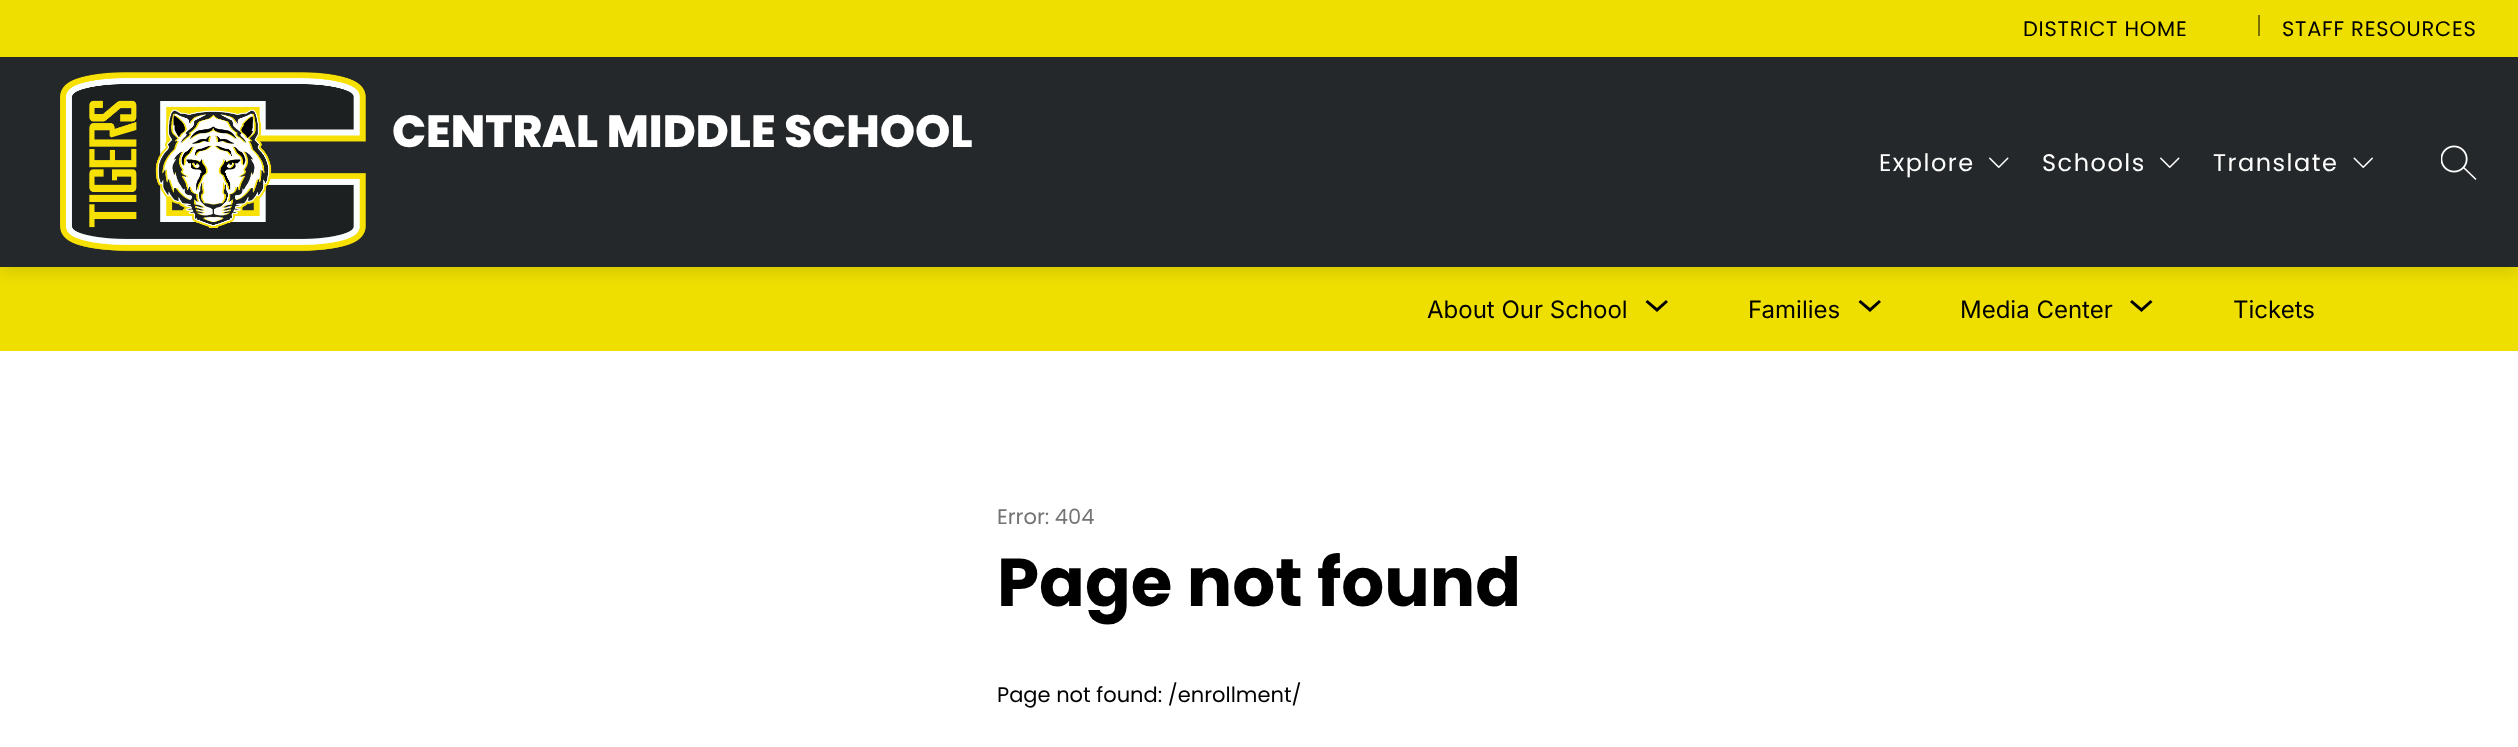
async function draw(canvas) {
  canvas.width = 2518
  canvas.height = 747
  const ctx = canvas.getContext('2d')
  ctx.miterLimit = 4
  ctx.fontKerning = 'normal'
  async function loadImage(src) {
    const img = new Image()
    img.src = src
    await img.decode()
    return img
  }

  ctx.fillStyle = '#fff'
  ctx.fillRect(0, 0, 2518, 747)
  ctx.fillStyle = '#efdf00'
  ctx.fillRect(0, 267, 2518, 84)
  ctx.fillStyle = '#0000001a'
  ctx.filter = 'blur(7.5px)'
  ctx.beginPath()
  ctx.rect(0, 6, 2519, 267)
  ctx.fill()
  ctx.filter = 'none'
  ctx.fillStyle = '#25282a'
  ctx.fillRect(0, 57, 2518, 210)
  ctx.fillStyle = '#efdf00'
  ctx.fillRect(0, 0, 2518, 57)
  ctx.letterSpacing = '0.75px'
  ctx.font = '21px Poppins'
  ctx.fillStyle = '#000'
  ctx.fillText('DISTRICT HOME', 2023, 36)
  ctx.fillStyle = '#787000'
  ctx.fillRect(2258, 15, 2, 21)
  ctx.fillStyle = '#000'
  ctx.fillText('STAFF RESOURCES', 2282, 36)
  ctx.drawImage(await loadImage('image0.png'), 60, 72, 306, 180)
  ctx.letterSpacing = '0px'
  ctx.font = '800 45px Poppins'
  ctx.fillStyle = '#fff'
  ctx.fillText('CENTRAL MIDDLE SCHOOL', 392, 147)
  ctx.letterSpacing = '1.5px'
  ctx.font = '24px Poppins'
  ctx.fillText('Explore', 1879, 171)
  ctx.drawImage(await loadImage('image1.png'), 1989, 157, 20, 11)
  ctx.fillText('Schools', 2042, 171)
  ctx.drawImage(await loadImage('image1.png'), 2160, 157, 20, 11)
  ctx.fillText('Translate', 2213, 171)
  ctx.drawImage(await loadImage('image2.png'), 2353, 157, 20, 11)
  ctx.drawImage(await loadImage('image3.png'), 2441, 145, 36, 35)
  ctx.letterSpacing = '0px'
  ctx.font = '24px Inter'
  ctx.fillStyle = '#000'
  ctx.fillText('About Our School', 1427, 318)
  ctx.beginPath()
  ctx.moveTo(1666, 300)
  ctx.lineTo(1657, 308)
  ctx.lineTo(1647.5, 300)
  ctx.lineTo(1645.5, 302)
  ctx.lineTo(1657, 312)
  ctx.lineTo(1668, 302)
  ctx.closePath()
  ctx.fill('evenodd')
  ctx.fillText('Families', 1748, 318)
  ctx.beginPath()
  ctx.moveTo(1879, 300)
  ctx.lineTo(1870, 308)
  ctx.lineTo(1860.5, 300)
  ctx.lineTo(1858.5, 302)
  ctx.lineTo(1870, 312)
  ctx.lineTo(1881, 302)
  ctx.closePath()
  ctx.fill('evenodd')
  ctx.fillText('Media Center', 1960, 318)
  ctx.beginPath()
  ctx.moveTo(2150.5, 300)
  ctx.lineTo(2141.5, 308)
  ctx.lineTo(2132, 300)
  ctx.lineTo(2130, 302)
  ctx.lineTo(2141.5, 312)
  ctx.lineTo(2152.5, 302)
  ctx.closePath()
  ctx.fill('evenodd')
  ctx.fillText('Tickets', 2233, 318)
  ctx.font = '21px Poppins'
  ctx.fillStyle = '#747474'
  ctx.fillText('Error: 404', 997, 524)
  ctx.font = 'bold 67.5px Poppins'
  ctx.fillStyle = '#000'
  ctx.fillText('Page not found', 997, 606)
  ctx.font = '21px Poppins'
  ctx.fillText('Page not found: /enrollment/', 997, 702)
}

draw(document.querySelector('canvas'))
